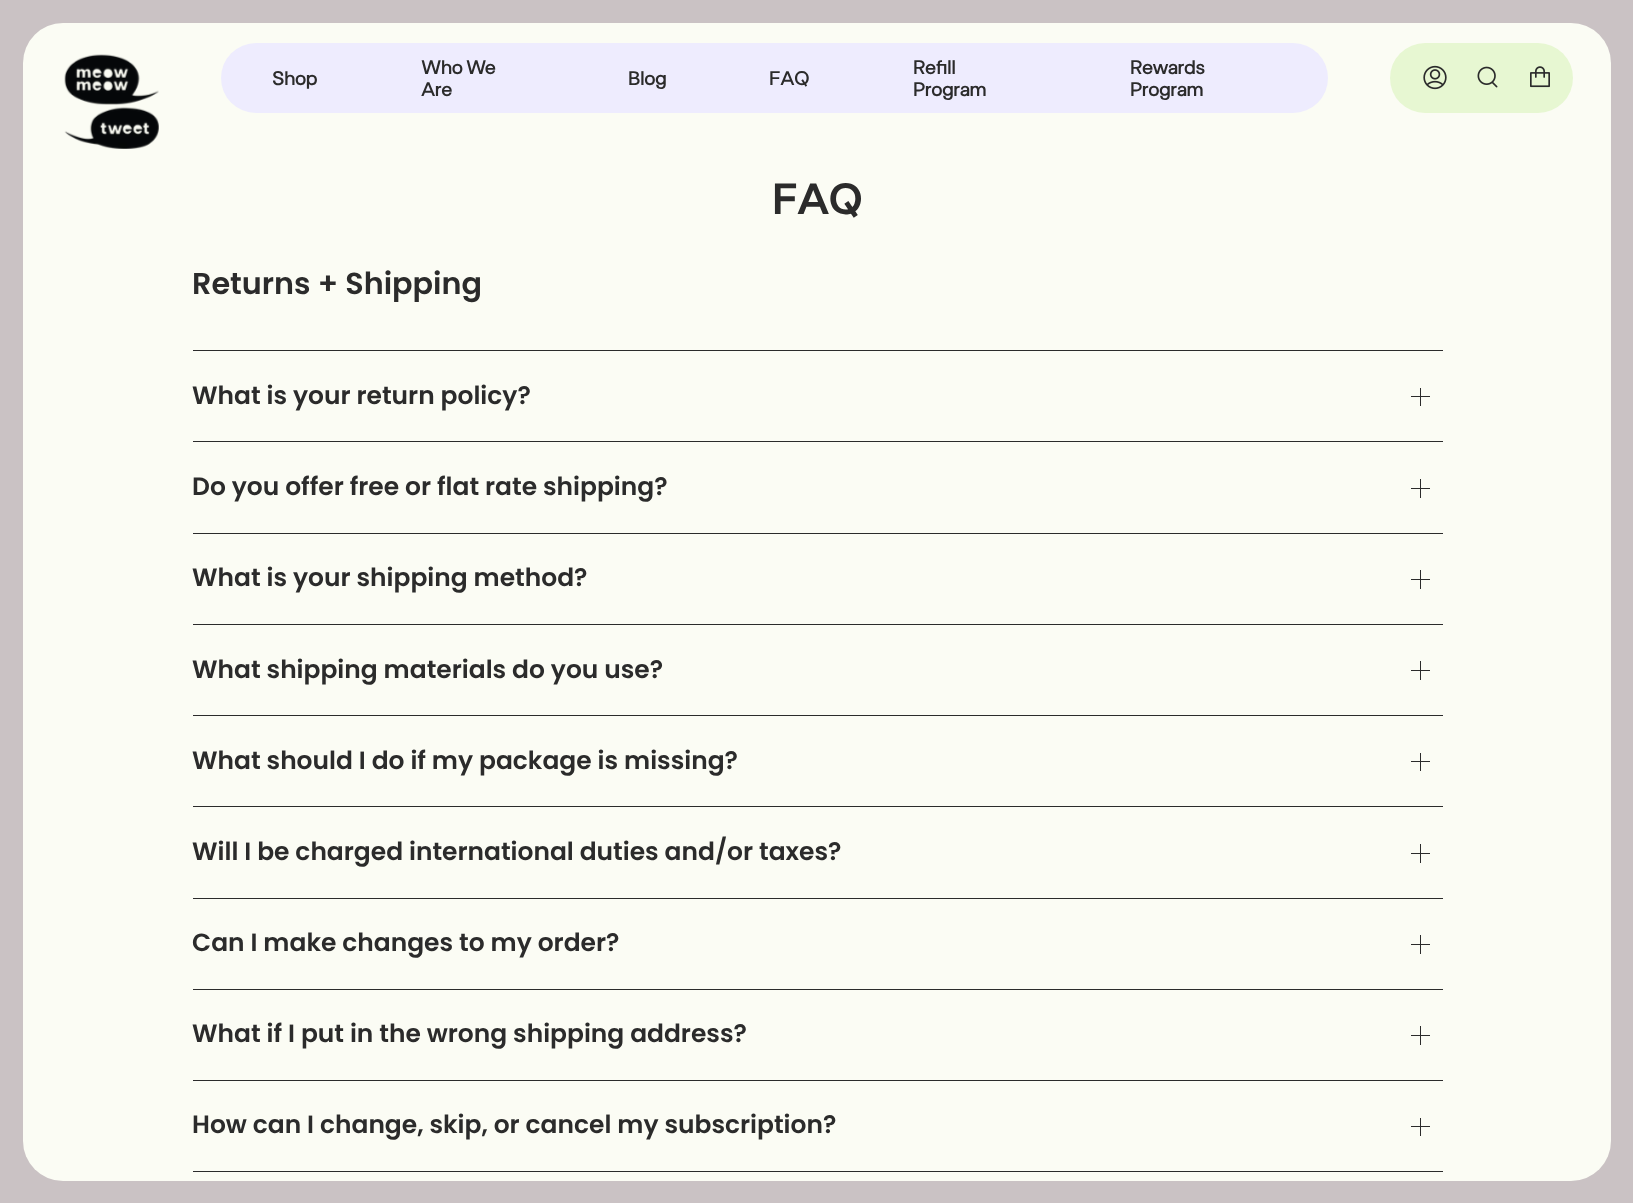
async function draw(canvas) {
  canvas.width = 1633
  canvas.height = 1203
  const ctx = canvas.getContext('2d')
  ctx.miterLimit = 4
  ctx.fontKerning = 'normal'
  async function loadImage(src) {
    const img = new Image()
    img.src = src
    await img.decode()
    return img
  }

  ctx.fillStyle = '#cac2c4'
  ctx.fillRect(0, 0, 1633, 1203)
  ctx.fillStyle = '#fbfcf4'
  ctx.beginPath()
  ctx.roundRect(23, 23, 1588, 242, [40, 40, 0, 0])
  ctx.fill()
  ctx.drawImage(await loadImage('image0.png'), 64, 54, 95, 95)
  ctx.fillStyle = '#eeecfe'
  ctx.beginPath()
  ctx.roundRect(221, 43, 1107, 70, 35)
  ctx.fill()
  ctx.font = 'bold 19px "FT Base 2"'
  ctx.fillStyle = '#2b2b2b'
  ctx.fillText('Shop', 272, 85)
  ctx.fillText('Who We', 421, 74)
  ctx.fillText('Are', 421, 96)
  ctx.fillText('Blog', 628, 85)
  ctx.fillText('FAQ', 769, 85)
  ctx.fillText('Refill', 913, 74)
  ctx.fillText('Program', 913, 96)
  ctx.fillText('Rewards', 1130, 74)
  ctx.fillText('Program', 1130, 96)
  ctx.fillStyle = '#e7f7d2'
  ctx.beginPath()
  ctx.roundRect(1390, 43, 183, 70, 35)
  ctx.fill()
  ctx.drawImage(await loadImage('image1.png'), 1423, 65, 24, 25)
  ctx.drawImage(await loadImage('image2.png'), 1477, 66, 21, 22)
  ctx.drawImage(await loadImage('image3.png'), 1530, 66, 20, 22)
  ctx.font = 'bold 42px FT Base'
  ctx.fillStyle = '#2b2b2b'
  ctx.fillText('FAQ', 772, 214)
  ctx.save()
  ctx.beginPath()
  ctx.roundRect(23, 23, 1588, 1158, 40)
  ctx.clip()
  ctx.fillStyle = '#fbfcf4'
  ctx.fillRect(23, 265, 1588, 908)
  ctx.restore()
  ctx.font = '600 30.25px Poppins'
  ctx.fillText('Returns + Shipping', 192, 294)
  ctx.fillRect(193, 350, 1250, 1)
  ctx.fillRect(193, 441, 1250, 1)
  ctx.font = '600 24.95px Poppins'
  ctx.fillText('What is your return policy?', 192, 404)
  ctx.fillRect(1411, 396, 19, 1)
  ctx.fillRect(1420, 388, 1, 18)
  ctx.fillRect(193, 533, 1250, 1)
  ctx.fillText('Do you offer free or flat rate shipping?', 192, 495)
  ctx.fillRect(1411, 488, 19, 1)
  ctx.fillRect(1420, 479, 1, 19)
  ctx.fillRect(193, 624, 1250, 1)
  ctx.fillText('What is your shipping method?', 192, 586)
  ctx.fillRect(1411, 579, 19, 1)
  ctx.fillRect(1420, 570, 1, 19)
  ctx.fillRect(193, 715, 1250, 1)
  ctx.fillText('What shipping materials do you use?', 192, 678)
  ctx.fillRect(1411, 670, 19, 1)
  ctx.fillRect(1420, 661, 1, 19)
  ctx.fillRect(193, 806, 1250, 1)
  ctx.fillText('What should I do if my package is missing?', 192, 769)
  ctx.fillRect(1411, 761, 19, 1)
  ctx.fillRect(1420, 753, 1, 18)
  ctx.fillRect(193, 898, 1250, 1)
  ctx.fillText('Will I be charged international duties and/or taxes?', 192, 860)
  ctx.fillRect(1411, 853, 19, 1)
  ctx.fillRect(1420, 844, 1, 19)
  ctx.fillRect(193, 989, 1250, 1)
  ctx.fillText('Can I make changes to my order?', 192, 951)
  ctx.fillRect(1411, 944, 19, 1)
  ctx.fillRect(1420, 935, 1, 19)
  ctx.fillRect(193, 1080, 1250, 1)
  ctx.fillText('What if I put in the wrong shipping address?', 192, 1042)
  ctx.fillRect(1411, 1035, 19, 1)
  ctx.fillRect(1420, 1026, 1, 19)
  ctx.fillRect(193, 1171, 1250, 1)
  ctx.fillText('How can I change, skip, or cancel my subscription?', 192, 1133)
  ctx.fillRect(1411, 1126, 19, 1)
  ctx.fillRect(1420, 1118, 1, 18)
  ctx.save()
  ctx.beginPath()
  ctx.roundRect(23, 23, 1588, 1158, 40)
  ctx.clip()
  ctx.fillStyle = '#fbfcf4'
  ctx.fillRect(39, 1173, 1556, 8)
  ctx.restore()
}

draw(document.querySelector('canvas'))
